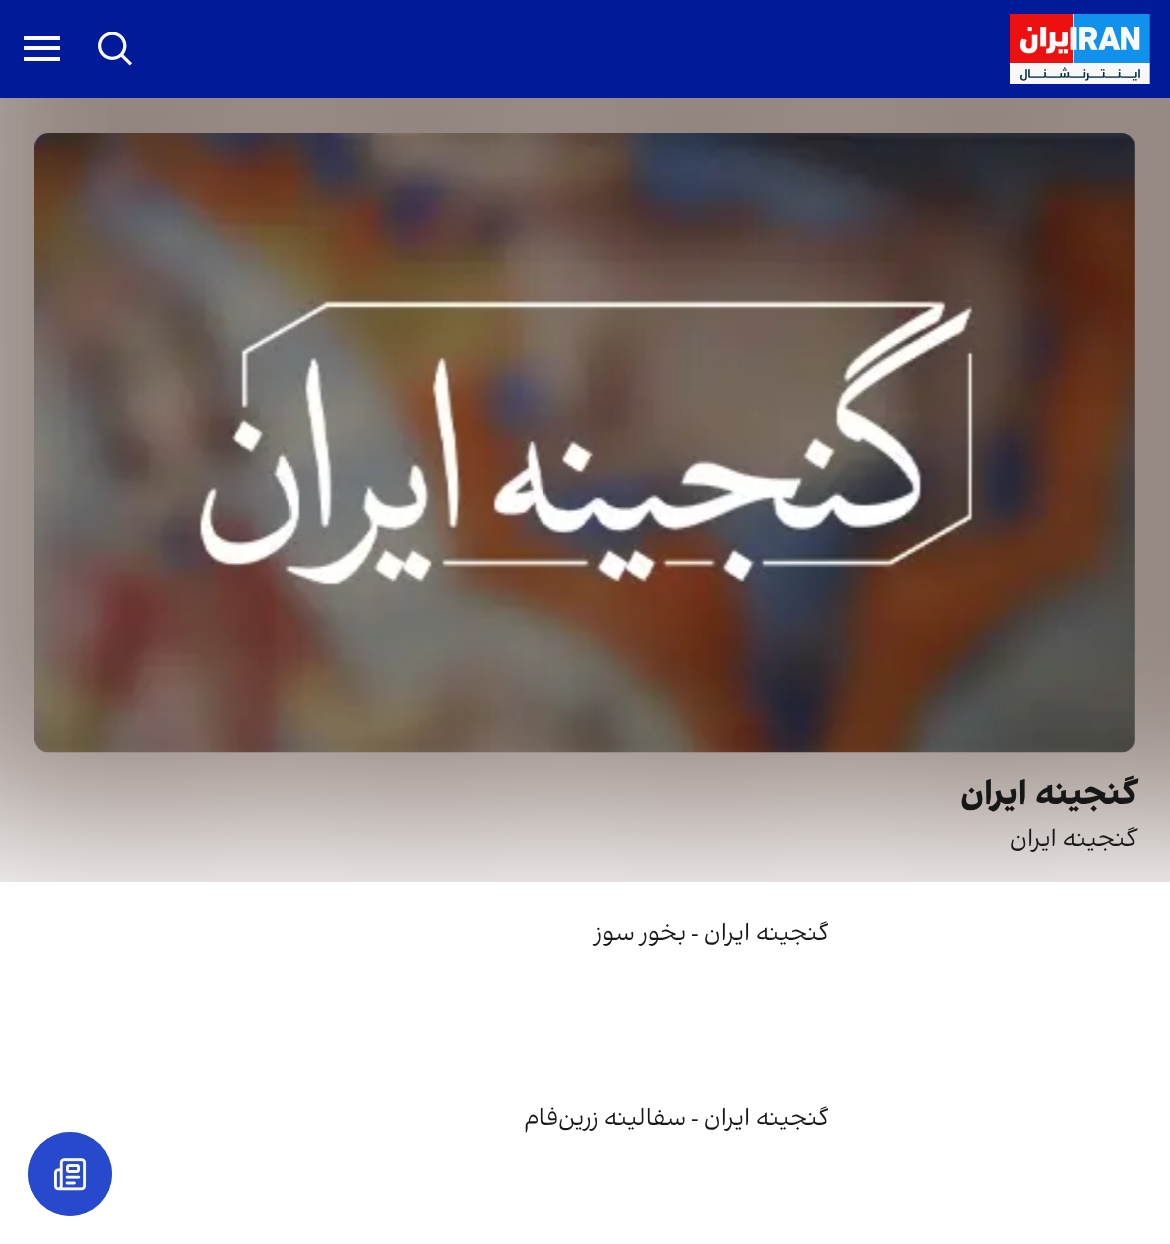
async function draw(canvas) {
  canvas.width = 1170
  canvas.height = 1244
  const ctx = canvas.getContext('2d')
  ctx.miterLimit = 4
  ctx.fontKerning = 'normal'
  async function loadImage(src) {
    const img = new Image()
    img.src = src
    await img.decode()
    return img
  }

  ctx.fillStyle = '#fff'
  ctx.fillRect(0, 0, 1170, 1244)
  ctx.fillStyle = '#001a99'
  ctx.fillRect(0, 0, 1170, 98)
  ctx.drawImage(await loadImage('image0.png'), 1010, 14, 140, 70)
  ctx.drawImage(await loadImage('image1.png'), 98, 32, 34, 34)
  ctx.fillStyle = '#fafafa'
  ctx.fillRect(24, 36, 36, 4)
  ctx.fillRect(24, 46, 36, 4)
  ctx.fillRect(24, 57, 36, 4)
  ctx.drawImage(await loadImage('image2.png'), 0, 98, 1170, 784)
  ctx.drawImage(await loadImage('image3.png'), 34, 133, 1101, 620)
  ctx.direction = 'rtl'
  ctx.font = 'bold 35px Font'
  ctx.fillStyle = '#171717'
  ctx.fillText('گنجینه ایران', 1136, 804)
  ctx.font = '500 24.5px Font'
  ctx.fillText('گنجینه ایران', 1136, 846)
  ctx.save()
  ctx.beginPath()
  ctx.rect(35, 917, 793, 33)
  ctx.clip()
  ctx.font = '500 24.1px Font'
  ctx.fillText('گنجینه ایران - بخور سوز', 828, 940)
  ctx.restore()
  ctx.save()
  ctx.beginPath()
  ctx.rect(35, 1103, 793, 33)
  ctx.clip()
  ctx.font = '500 24.1px Font'
  ctx.fillText('گنجینه ایران - سفالینه زرین‌فام', 828, 1125)
  ctx.restore()
  ctx.fillStyle = '#001a99'
  ctx.beginPath()
  ctx.arc(70, 1174, 42, 0, 2 * Math.PI)
  ctx.fill()
  ctx.save()
  ctx.beginPath()
  ctx.roundRect(28, 1132, 84, 84, 42)
  ctx.clip()
  ctx.fillStyle = '#4d79ff80'
  ctx.beginPath()
  ctx.arc(70.5, 1174.5, 108.5, 0, 2 * Math.PI)
  ctx.fill()
  ctx.restore()
  ctx.drawImage(await loadImage('image4.png'), 53, 1158, 34, 33)
}

draw(document.querySelector('canvas'))
